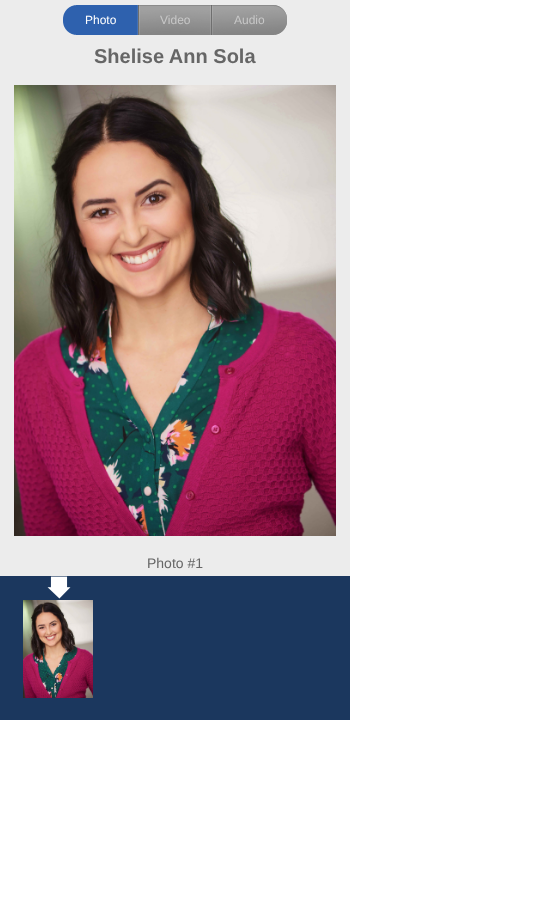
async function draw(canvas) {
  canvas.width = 557
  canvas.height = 916
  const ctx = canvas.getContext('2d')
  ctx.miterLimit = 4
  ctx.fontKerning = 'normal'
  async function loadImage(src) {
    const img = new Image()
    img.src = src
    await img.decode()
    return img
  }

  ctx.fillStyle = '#fff'
  ctx.fillRect(0, 0, 557, 916)
  ctx.fillStyle = '#ececec'
  ctx.fillRect(0, 0, 350, 576)
  ctx.drawImage(await loadImage('image0.png'), 63, 5, 75, 30)
  ctx.font = '12px Liberation Sans'
  ctx.fillStyle = '#fff'
  ctx.fillText('Photo', 85, 24)
  ctx.drawImage(await loadImage('image1.png'), 138, 5, 74, 30)
  ctx.fillStyle = '#c8c8c8'
  ctx.fillText('Video', 160, 24)
  ctx.drawImage(await loadImage('image2.png'), 212, 5, 75, 30)
  ctx.fillText('Audio', 234, 24)
  ctx.font = 'bold 20px Liberation Sans'
  ctx.fillStyle = '#666'
  ctx.fillText('Shelise Ann Sola', 94, 63)
  ctx.drawImage(await loadImage('image3.png'), 14, 85, 322, 451)
  ctx.font = '14px Liberation Sans'
  ctx.fillText('Photo #1', 147, 568)
  ctx.fillStyle = '#1b375e'
  ctx.fillRect(0, 576, 350, 144)
  ctx.drawImage(await loadImage('image4.png'), 47, 576, 24, 23)
  ctx.drawImage(await loadImage('image5.png'), 23, 600, 70, 98)
}

draw(document.querySelector('canvas'))
